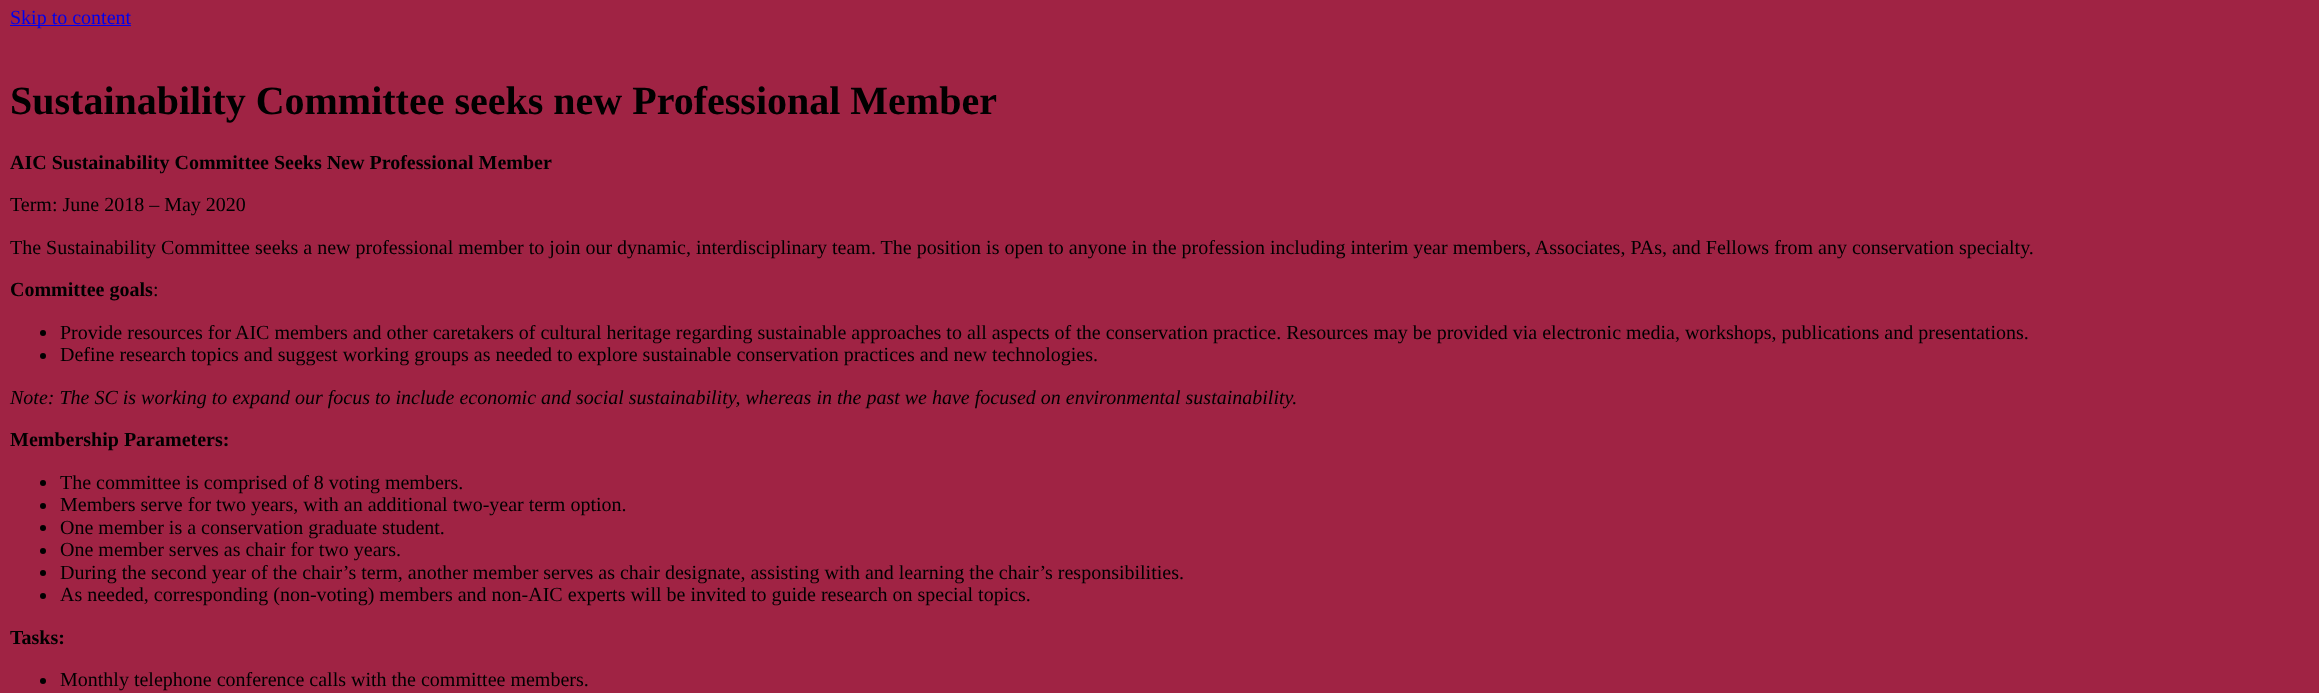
async function draw(canvas) {
  canvas.width = 2319
  canvas.height = 693
  const ctx = canvas.getContext('2d')
  ctx.miterLimit = 4
  ctx.fontKerning = 'normal'

  ctx.fillStyle = '#a02344'
  ctx.fillRect(0, 0, 2319, 693)
  ctx.fillStyle = '#00e'
  ctx.fillRect(10, 25, 121, 1)
  ctx.font = '20px Liberation Serif'
  ctx.fillText('Skip to content', 10, 24)
  ctx.font = 'bold 40px Liberation Serif'
  ctx.fillStyle = '#000'
  ctx.fillText('Sustainability Committee seeks new Professional Member', 10, 114)
  ctx.font = 'bold 20px Liberation Serif'
  ctx.fillText('AIC Sustainability Committee Seeks New Professional Member', 10, 169)
  ctx.font = '20px Liberation Serif'
  ctx.fillText('Term: June 2018 – May 2020', 10, 211)
  ctx.fillText('The Sustainability Committee seeks a new professional member to join our dynamic, interdisciplinary team. The position is open to anyone in the profession including interim year members, Associates, PAs, and Fellows from any conservation specialty.', 10, 254)
  ctx.font = 'bold 20px Liberation Serif'
  ctx.fillText('Committee goals', 10, 296)
  ctx.font = '20px Liberation Serif'
  ctx.fillText(':', 153, 296)
  ctx.beginPath()
  ctx.arc(43, 333, 3, 0, 2 * Math.PI)
  ctx.fill()
  ctx.fillText('Provide resources for AIC members and other caretakers of cultural heritage regarding sustainable approaches to all aspects of the conservation practice. Resources may be provided via electronic media, workshops, publications and presentations.', 60, 339)
  ctx.beginPath()
  ctx.arc(43, 356, 3, 0, 2 * Math.PI)
  ctx.fill()
  ctx.fillText('Define research topics and suggest working groups as needed to explore sustainable conservation practices and new technologies.', 60, 361)
  ctx.font = 'italic 20px Liberation Serif'
  ctx.fillText('Note: The SC is working to expand our focus to include economic and social sustainability, whereas in the past we have focused on environmental sustainability.', 10, 404)
  ctx.font = 'bold 20px Liberation Serif'
  ctx.fillText('Membership Parameters:', 10, 446)
  ctx.beginPath()
  ctx.arc(43, 483, 3, 0, 2 * Math.PI)
  ctx.fill()
  ctx.font = '20px Liberation Serif'
  ctx.fillText('The committee is comprised of 8 voting members.', 60, 489)
  ctx.beginPath()
  ctx.arc(43, 506, 3, 0, 2 * Math.PI)
  ctx.fill()
  ctx.fillText('Members serve for two years, with an additional two-year term option.', 60, 511)
  ctx.beginPath()
  ctx.arc(43, 528, 3, 0, 2 * Math.PI)
  ctx.fill()
  ctx.fillText('One member is a conservation graduate student.', 60, 534)
  ctx.beginPath()
  ctx.arc(43, 551, 3, 0, 2 * Math.PI)
  ctx.fill()
  ctx.fillText('One member serves as chair for two years.', 60, 556)
  ctx.beginPath()
  ctx.arc(43, 573, 3, 0, 2 * Math.PI)
  ctx.fill()
  ctx.fillText('During the second year of the chair’s term, another member serves as chair designate, assisting with and learning the chair’s responsibilities.', 60, 579)
  ctx.beginPath()
  ctx.arc(43, 596, 3, 0, 2 * Math.PI)
  ctx.fill()
  ctx.fillText('As needed, corresponding (non-voting) members and non-AIC experts will be invited to guide research on special topics.', 60, 601)
  ctx.font = 'bold 20px Liberation Serif'
  ctx.fillText('Tasks:', 10, 644)
  ctx.beginPath()
  ctx.arc(43, 681, 3, 0, 2 * Math.PI)
  ctx.fill()
  ctx.font = '20px Liberation Serif'
  ctx.fillText('Monthly telephone conference calls with the committee members.', 60, 686)
}

draw(document.querySelector('canvas'))
